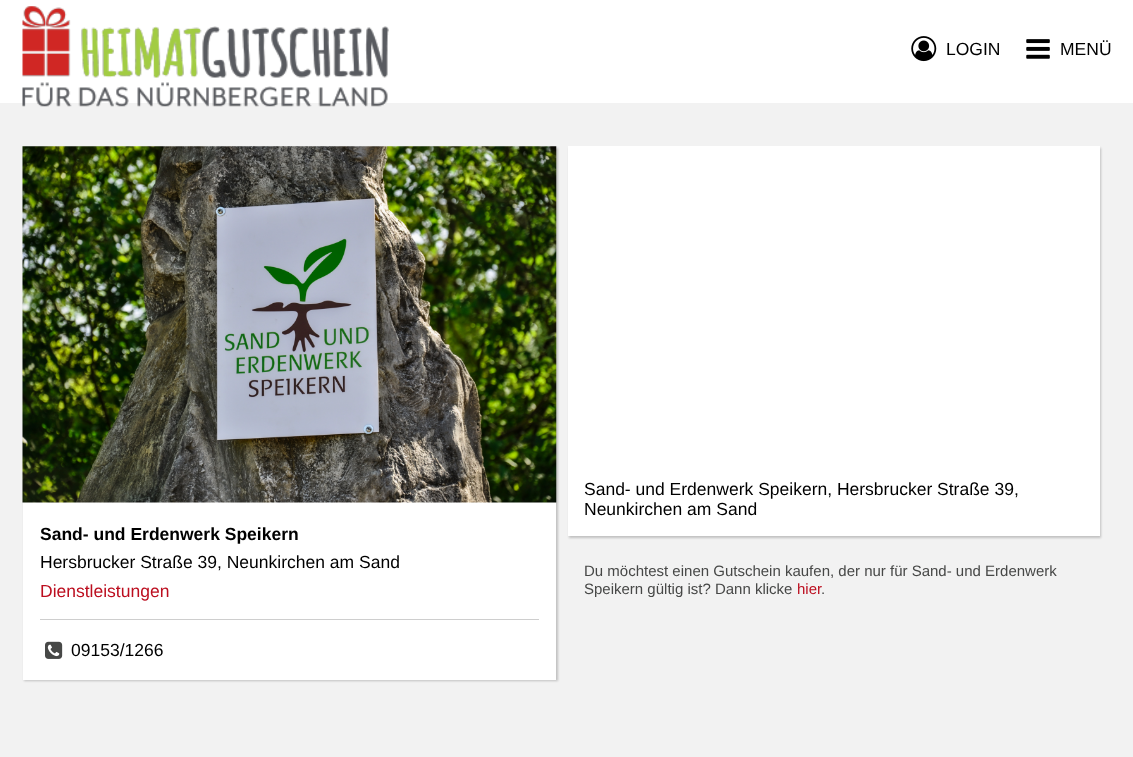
async function draw(canvas) {
  canvas.width = 1133
  canvas.height = 757
  const ctx = canvas.getContext('2d')
  ctx.miterLimit = 4
  ctx.fontKerning = 'normal'
  async function loadImage(src) {
    const img = new Image()
    img.src = src
    await img.decode()
    return img
  }

  ctx.fillStyle = '#f2f2f2'
  ctx.fillRect(0, 0, 1133, 757)
  ctx.fillStyle = '#fff'
  ctx.fillRect(0, 0, 1133, 103)
  ctx.drawImage(await loadImage('image0.png'), 22, 6, 367, 101)
  ctx.drawImage(await loadImage('image1.png'), 911, 36, 26, 26)
  ctx.font = '17.5px Liberation Sans'
  ctx.fillStyle = '#000'
  ctx.fillText('LOGIN', 946, 55)
  ctx.drawImage(await loadImage('image2.png'), 1026, 39, 24, 20)
  ctx.fillText('MENÜ', 1060, 55)
  ctx.fillStyle = '#00000033'
  ctx.filter = 'blur(1px)'
  ctx.beginPath()
  ctx.rect(24, 148, 534, 533)
  ctx.fill()
  ctx.filter = 'none'
  ctx.fillStyle = '#fff'
  ctx.fillRect(23, 146, 533, 534)
  ctx.drawImage(await loadImage('image3.png'), 22, 146, 535, 357)
  ctx.font = 'bold 17.5px Liberation Sans'
  ctx.fillStyle = '#000'
  ctx.fillText('Sand- und Erdenwerk Speikern', 40, 540)
  ctx.font = '17.5px Liberation Sans'
  ctx.fillText('Hersbrucker Straße 39, Neunkirchen am Sand', 40, 568)
  ctx.fillStyle = '#bc0e1f'
  ctx.fillText('Dienstleistungen', 40, 597)
  ctx.fillStyle = '#cecece'
  ctx.fillRect(40, 619, 499, 1)
  ctx.drawImage(await loadImage('image4.png'), 45, 641, 18, 18)
  ctx.fillStyle = '#000'
  ctx.fillText('09153/1266', 71, 656)
  ctx.fillStyle = '#00000033'
  ctx.filter = 'blur(1px)'
  ctx.beginPath()
  ctx.rect(569, 148, 532, 390)
  ctx.fill()
  ctx.filter = 'none'
  ctx.fillStyle = '#fff'
  ctx.fillRect(568, 146, 532, 390)
  ctx.fillStyle = '#000'
  ctx.fillText('Sand- und Erdenwerk Speikern, Hersbrucker Straße 39,', 584, 495)
  ctx.fillText('Neunkirchen am Sand', 584, 515)
  ctx.font = '15px Liberation Sans'
  ctx.fillStyle = '#474847'
  ctx.fillText('Du möchtest einen Gutschein kaufen, der nur für Sand- und Erdenwerk', 584, 576)
  ctx.fillText('Speikern gültig ist? Dann klicke', 584, 594)
  ctx.fillStyle = '#bc0e1f'
  ctx.fillText('hier', 797, 594)
  ctx.fillStyle = '#474847'
  ctx.fillText('.', 821, 594)
}

draw(document.querySelector('canvas'))
